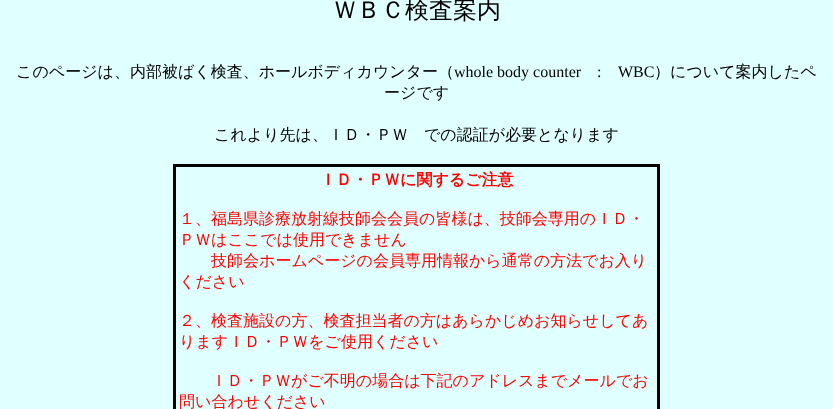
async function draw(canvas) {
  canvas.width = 833
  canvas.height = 409
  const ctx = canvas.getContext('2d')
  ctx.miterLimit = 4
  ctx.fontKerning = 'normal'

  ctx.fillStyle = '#e0ffff'
  ctx.fillRect(0, 0, 833, 409)
  ctx.font = '500 24px WenQuanYi Zen Hei'
  ctx.fillStyle = '#000'
  ctx.fillText('ＷＢＣ検査案内', 333, 18)
  ctx.font = '500 16px WenQuanYi Zen Hei'
  ctx.fillText('このページは、内部被ばく検査、ホールボディカウンター（', 16, 77)
  ctx.font = '16px Liberation Serif'
  ctx.fillText('whole body counter', 454, 77)
  ctx.fillText(':', 597, 77)
  ctx.fillText('WBC', 618, 77)
  ctx.font = '500 16px WenQuanYi Zen Hei'
  ctx.fillText('）について案内したペ', 654, 77)
  ctx.fillText('ージです', 384, 98)
  ctx.fillText('これより先は、ＩＤ・ＰＷ　での認証が必要となります', 214, 140)
  ctx.strokeStyle = '#000'
  ctx.lineWidth = 3
  ctx.strokeRect(174.5, 165.5, 484, 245)
  ctx.font = 'bold 16px WenQuanYi Zen Hei'
  ctx.fillStyle = '#f00'
  ctx.fillText('ＩＤ・ＰＷに関するご注意', 320, 185)
  ctx.font = '500 16px WenQuanYi Zen Hei'
  ctx.fillText('１、福島県診療放射線技師会会員の皆様は、技師会専用のＩＤ・', 179, 224)
  ctx.fillText('ＰＷはここでは使用できません', 179, 245)
  ctx.fillText('技師会ホームページの会員専用情報から通常の方法でお入り', 211, 266)
  ctx.fillText('ください', 179, 287)
  ctx.fillText('２、検査施設の方、検査担当者の方はあらかじめお知らせしてあ', 179, 326)
  ctx.fillText('りますＩＤ・ＰＷをご使用ください', 179, 347)
  ctx.fillText('ＩＤ・ＰＷがご不明の場合は下記のアドレスまでメールでお', 211, 386)
  ctx.fillText('問い合わせください', 179, 407)
}

draw(document.querySelector('canvas'))
